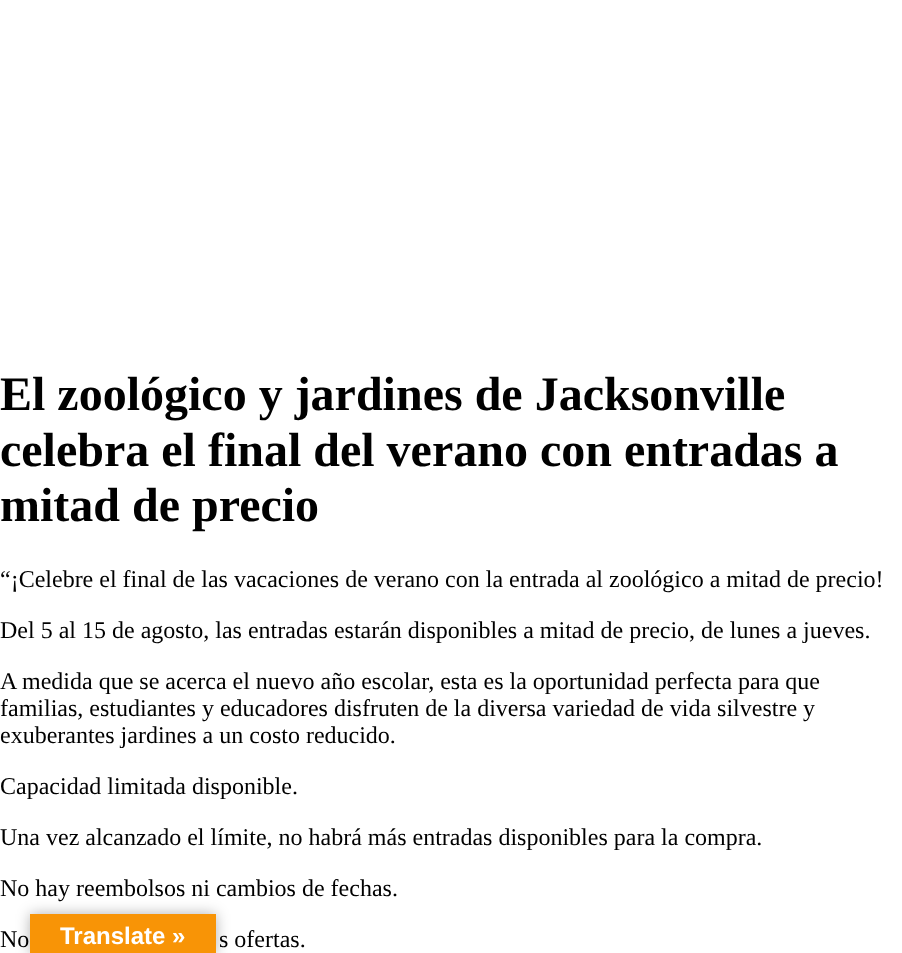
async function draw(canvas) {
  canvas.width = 902
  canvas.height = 953
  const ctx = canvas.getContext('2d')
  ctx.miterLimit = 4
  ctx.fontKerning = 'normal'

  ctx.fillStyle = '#fff'
  ctx.fillRect(0, 0, 902, 953)
  ctx.font = 'bold 48px Liberation Serif'
  ctx.fillStyle = '#000'
  ctx.fillText('El zoológico y jardines de Jacksonville', 0, 410)
  ctx.fillText('celebra el final del verano con entradas a', 0, 466)
  ctx.fillText('mitad de precio', 0, 521)
  ctx.font = '24px Liberation Serif'
  ctx.fillText('“¡Celebre el final de las vacaciones de verano con la entrada al zoológico a mitad de precio!', 0, 587)
  ctx.fillText('Del 5 al 15 de agosto, las entradas estarán disponibles a mitad de precio, de lunes a jueves.', 0, 638)
  ctx.fillText('A medida que se acerca el nuevo año escolar, esta es la oportunidad perfecta para que', 0, 689)
  ctx.fillText('familias, estudiantes y educadores disfruten de la diversa variedad de vida silvestre y', 0, 716)
  ctx.fillText('exuberantes jardines a un costo reducido.', 0, 743)
  ctx.fillText('Capacidad limitada disponible.', 0, 794)
  ctx.fillText('Una vez alcanzado el límite, no habrá más entradas disponibles para la compra.', 0, 845)
  ctx.fillText('No hay reembolsos ni cambios de fechas.', 0, 896)
  ctx.fillText('No', 0, 947)
  ctx.fillText('s ofertas.', 219, 947)
  ctx.fillStyle = '#0000004d'
  ctx.filter = 'blur(7px)'
  ctx.beginPath()
  ctx.rect(30, 914, 186, 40)
  ctx.fill()
  ctx.filter = 'none'
  ctx.fillStyle = '#f89406'
  ctx.fillRect(30, 914, 186, 39)
  ctx.font = 'bold 24px Liberation Sans'
  ctx.fillStyle = '#fff'
  ctx.fillText('Translate »', 60, 944)
}

draw(document.querySelector('canvas'))
